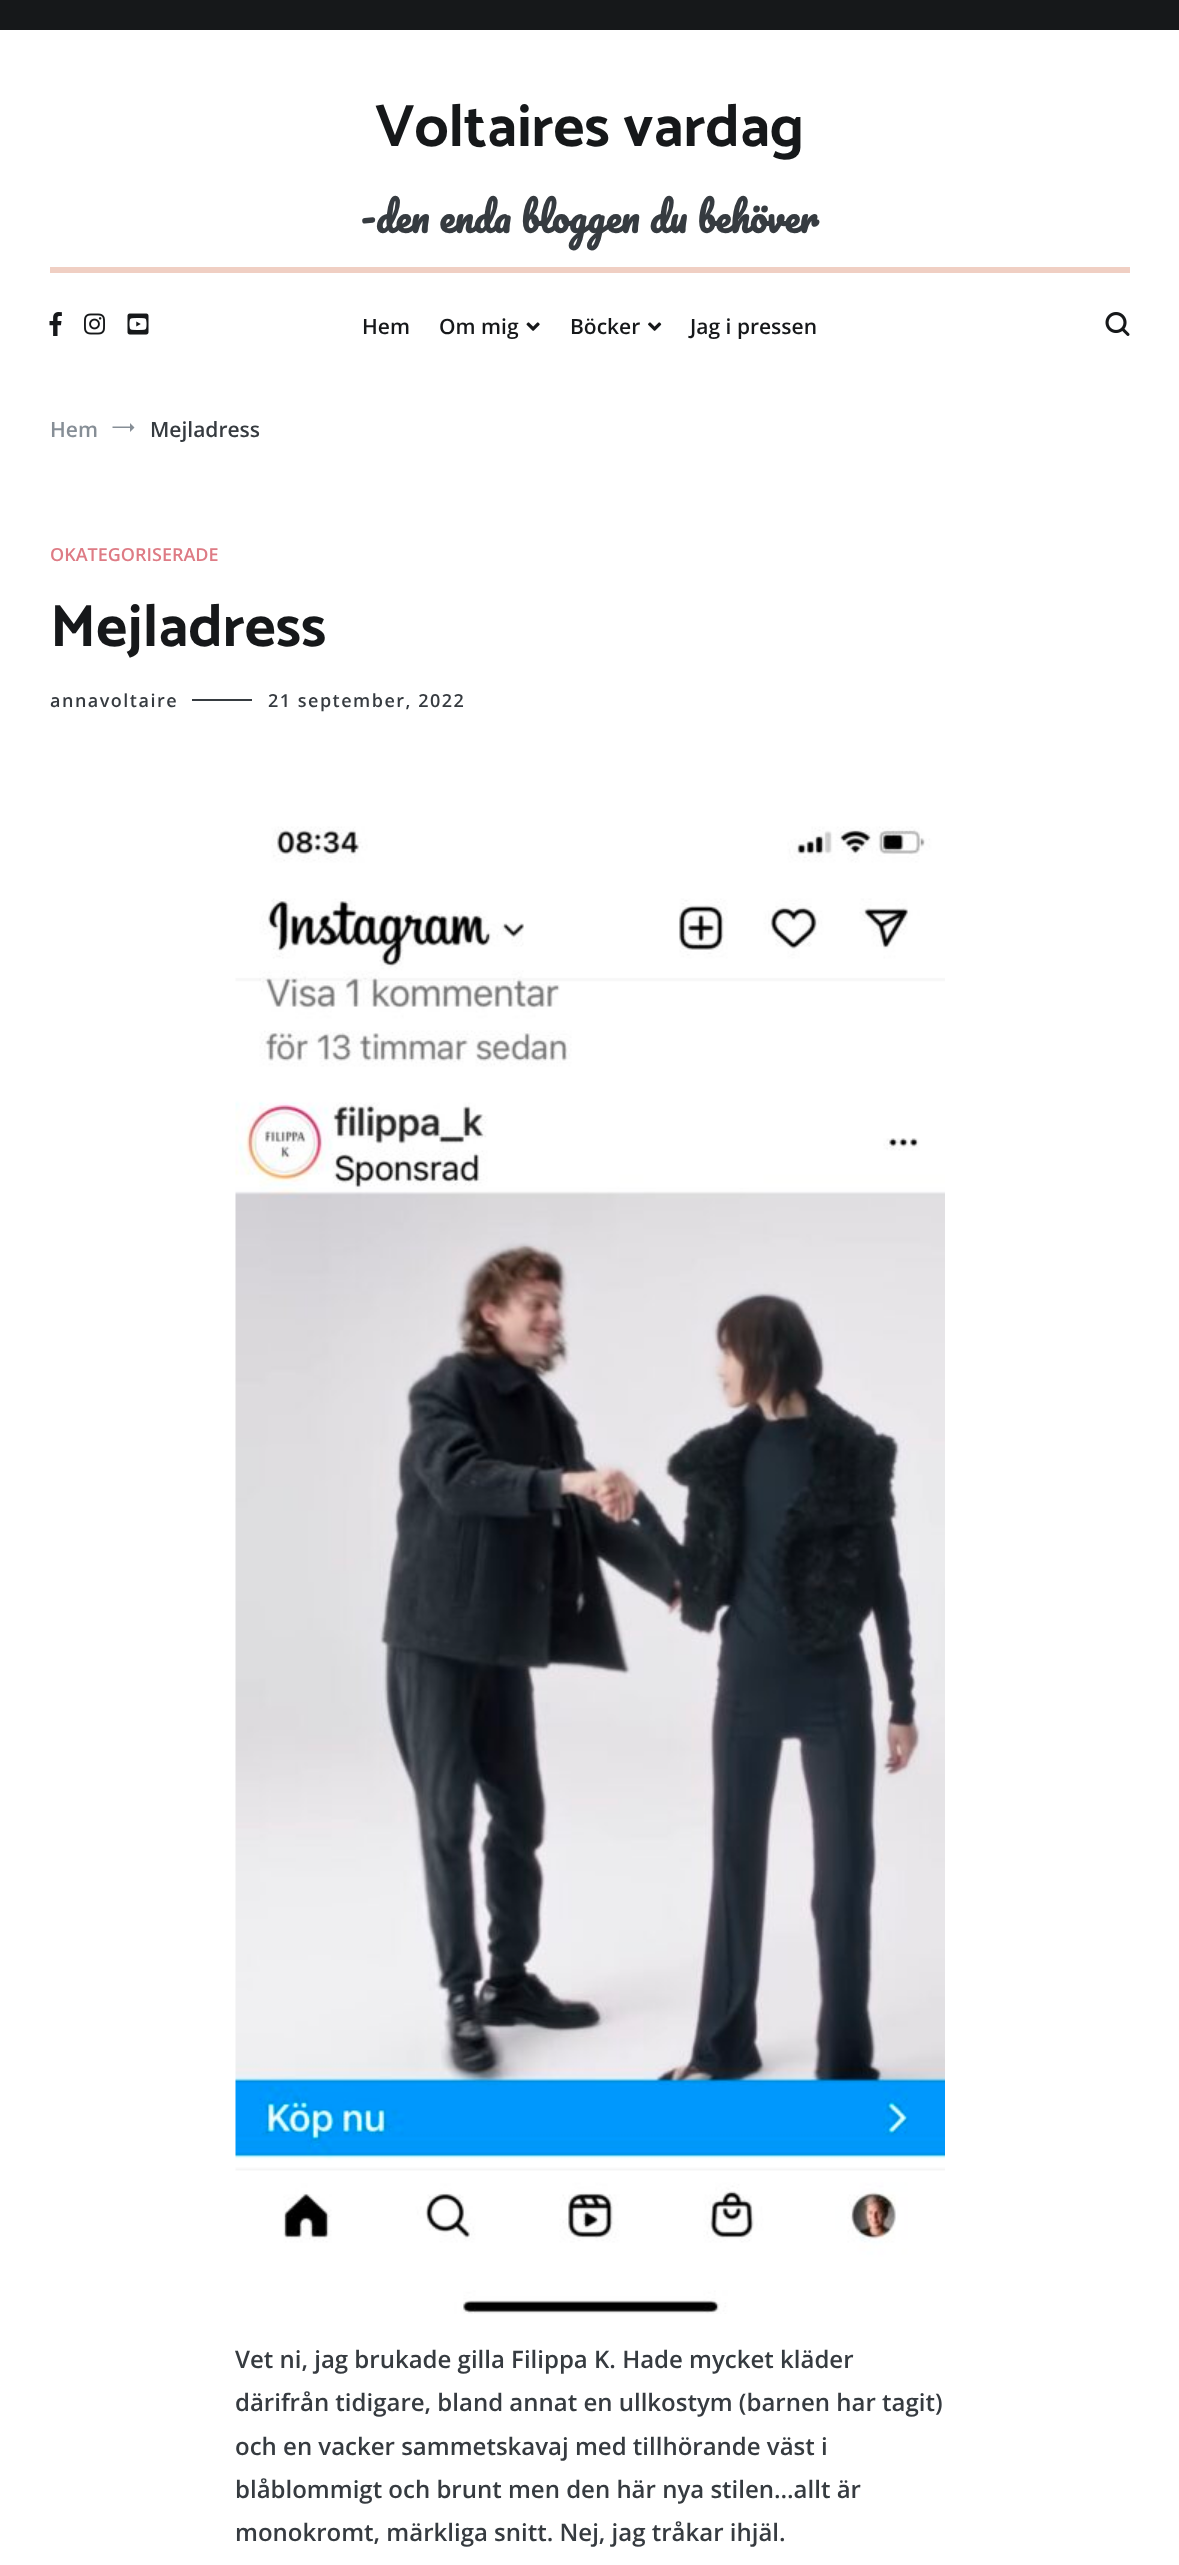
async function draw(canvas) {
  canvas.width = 1179
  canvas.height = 2565
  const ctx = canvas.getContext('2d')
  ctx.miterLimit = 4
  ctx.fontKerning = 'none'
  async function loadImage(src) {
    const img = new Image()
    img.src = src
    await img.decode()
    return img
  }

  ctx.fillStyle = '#fff'
  ctx.fillRect(0, 0, 1179, 2565)
  ctx.fillStyle = '#16181a'
  ctx.fillRect(0, 0, 1179, 30)
  ctx.font = '100 60px Catamaran'
  ctx.fillText('Voltaires vardag', 375, 146)
  ctx.font = 'bold 38.4px Pacifico'
  ctx.fillStyle = '#363b40'
  ctx.fillText('-den enda bloggen du behöver', 360, 233)
  ctx.fillStyle = '#f0cfc3'
  ctx.fillRect(50, 267, 1080, 6)
  ctx.drawImage(await loadImage('image0.png'), 49, 312, 13, 24)
  ctx.drawImage(await loadImage('image1.png'), 84, 313, 21, 22)
  ctx.drawImage(await loadImage('image2.png'), 127, 313, 22, 22)
  ctx.font = '600 21px Open Sans'
  ctx.fillStyle = '#16181a'
  ctx.fillText('Hem', 362, 334)
  ctx.fillText('Om mig', 439, 334)
  ctx.drawImage(await loadImage('image3.png'), 526, 322, 14, 9)
  ctx.fillText('Böcker', 570, 334)
  ctx.drawImage(await loadImage('image4.png'), 648, 322, 14, 9)
  ctx.fillText('Jag i pressen', 690, 334)
  ctx.drawImage(await loadImage('image5.png'), 1105, 312, 25, 24)
  ctx.fillStyle = '#868e96'
  ctx.fillText('Hem', 50, 437)
  ctx.beginPath()
  ctx.moveTo(134.5, 427.5)
  ctx.lineTo(130, 432)
  ctx.lineTo(130, 423)
  ctx.closePath()
  ctx.moveTo(112.5, 426.5)
  ctx.lineTo(130, 426.5)
  ctx.lineTo(130, 428)
  ctx.lineTo(112.5, 428)
  ctx.closePath()
  ctx.fill()
  ctx.fillStyle = '#363b40'
  ctx.fillText('Mejladress', 150, 437)
  ctx.font = '600 18px Open Sans'
  ctx.fillStyle = '#de7b85'
  ctx.fillText('OKATEGORISERADE', 50, 561)
  ctx.font = '100 60px Catamaran'
  ctx.fillStyle = '#16181a'
  ctx.fillText('Mejladress', 50, 646)
  ctx.letterSpacing = '1.5px'
  ctx.font = '600 18px Open Sans'
  ctx.fillStyle = '#363b40'
  ctx.fillText('annavoltaire', 50, 707)
  ctx.fillRect(192, 699, 60, 2)
  ctx.fillText('21 september, 2022', 268, 707)
  ctx.drawImage(await loadImage('image6.png'), 235, 826, 710, 1488)
  ctx.letterSpacing = '0px'
  ctx.font = '600 24px Open Sans'
  ctx.fillText('Vet ni, jag brukade gilla Filippa K. Hade mycket kläder', 235, 2368)
  ctx.fillText('därifrån tidigare, bland annat en ullkostym (barnen har tagit)', 235, 2411)
  ctx.fillText('och en vacker sammetskavaj med tillhörande väst i', 235, 2455)
  ctx.fillText('blåblommigt och brunt men den här nya stilen…allt är', 235, 2498)
  ctx.fillText('monokromt, märkliga snitt. Nej, jag tråkar ihjäl.', 235, 2541)
}

draw(document.querySelector('canvas'))
